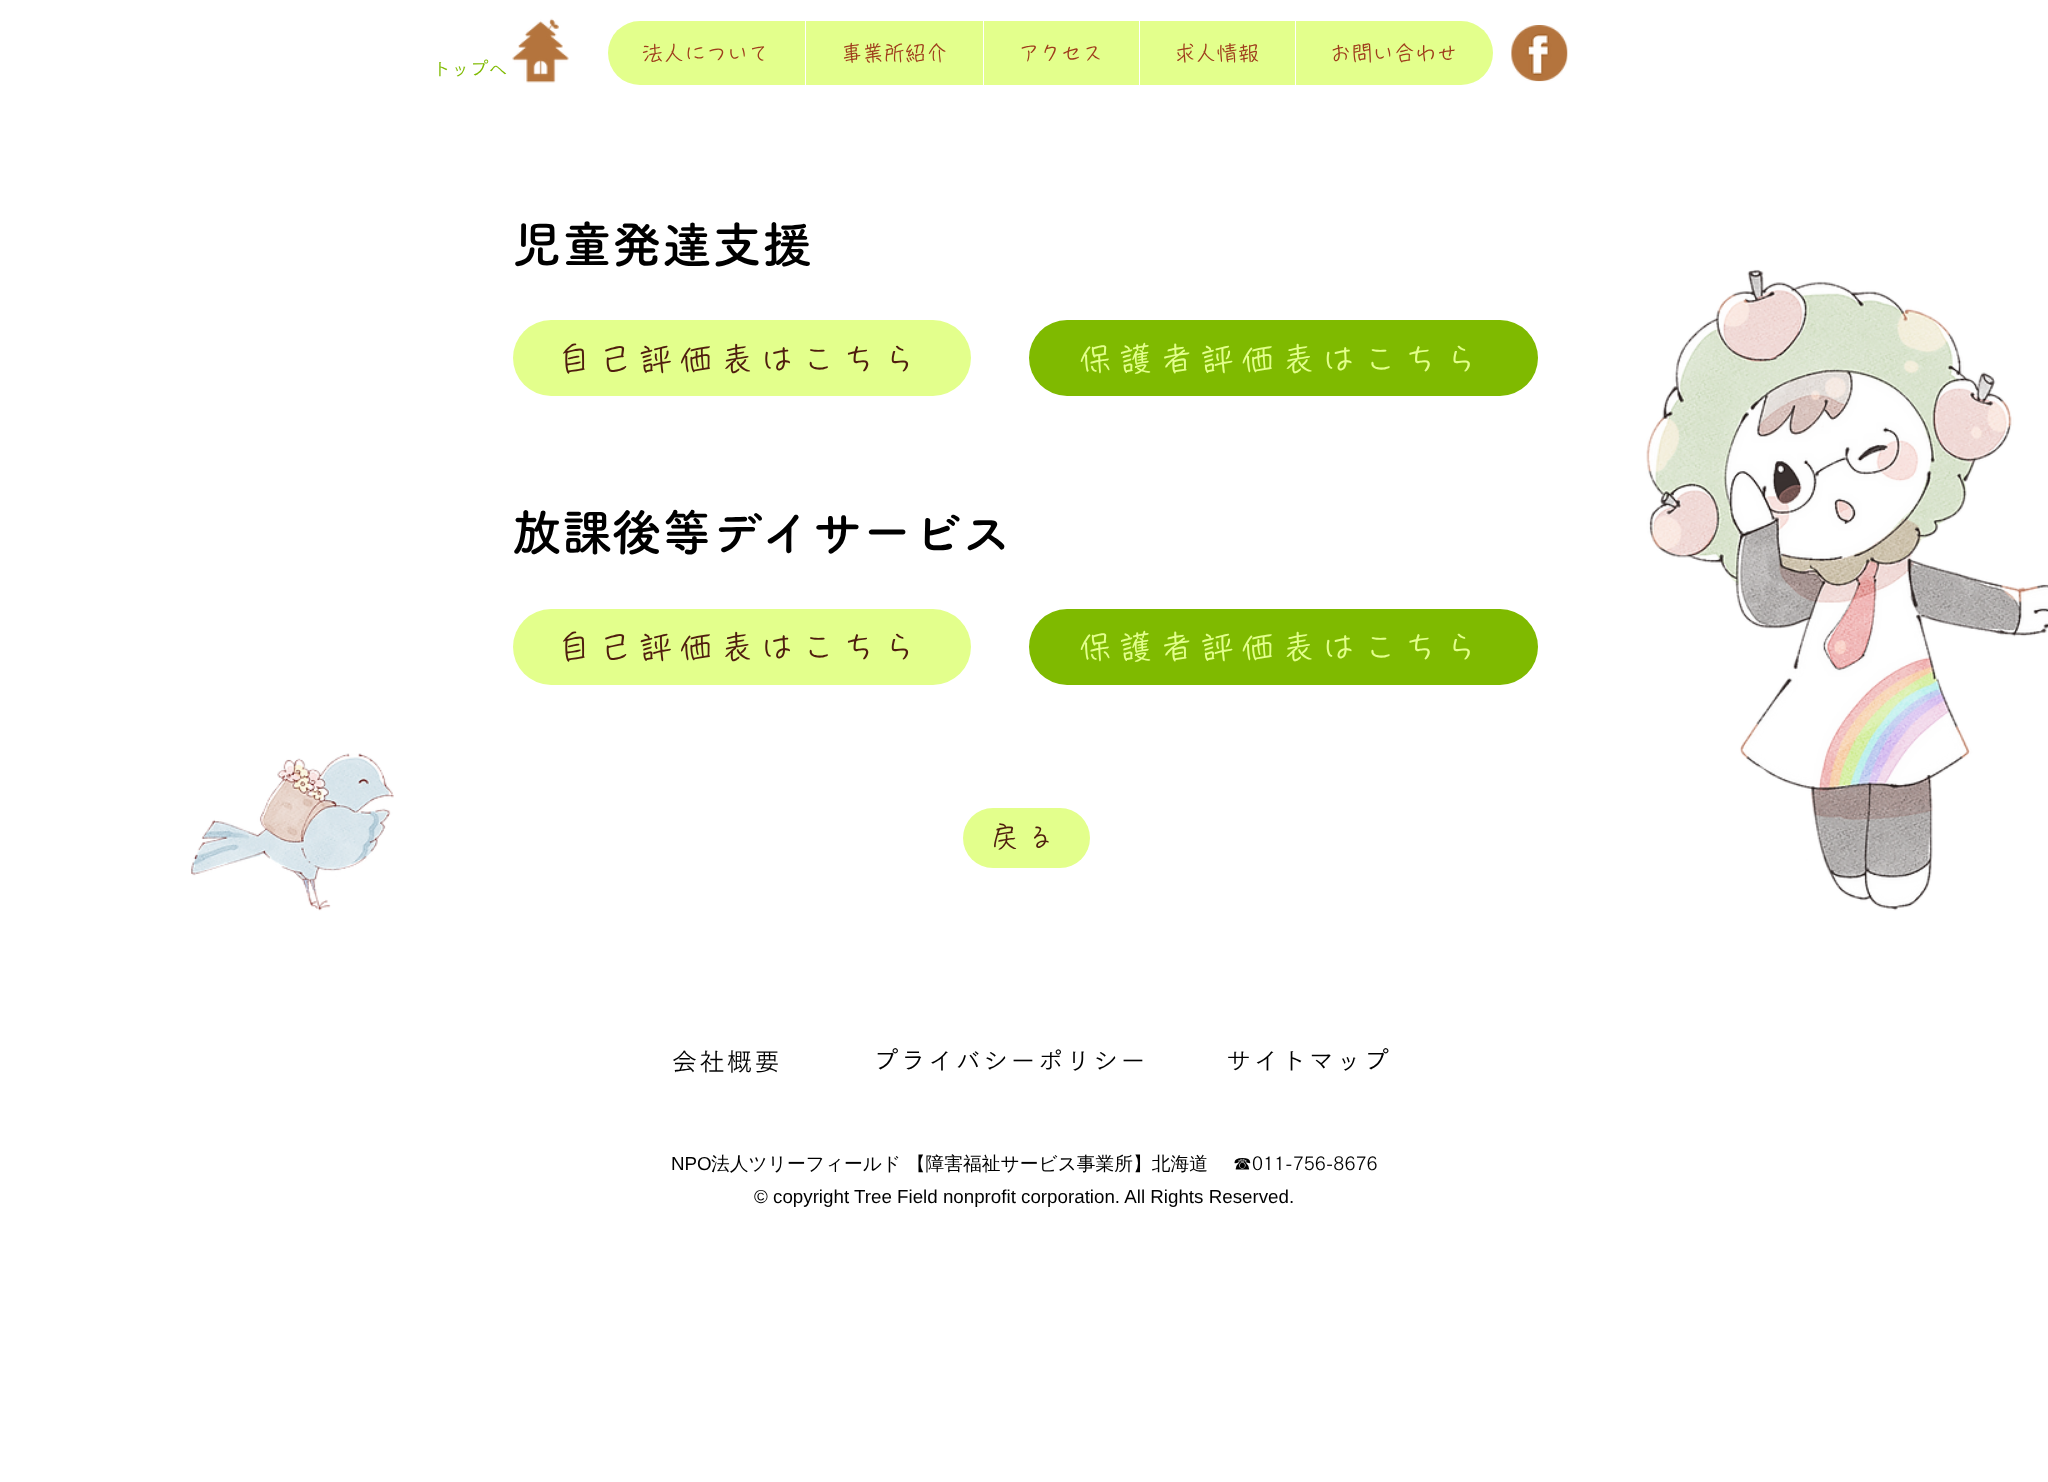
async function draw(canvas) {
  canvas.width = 2048
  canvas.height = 1482
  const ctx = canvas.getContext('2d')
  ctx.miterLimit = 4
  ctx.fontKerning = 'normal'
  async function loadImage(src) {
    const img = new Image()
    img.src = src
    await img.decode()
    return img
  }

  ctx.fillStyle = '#fff'
  ctx.fillRect(0, 0, 2048, 1482)
  ctx.drawImage(await loadImage('image0.png'), 512, 18, 57, 65)
  ctx.fillStyle = '#e3ff8c'
  ctx.beginPath()
  ctx.roundRect(608, 21, 885, 64, 32)
  ctx.fill()
  ctx.font = '21.25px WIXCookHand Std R'
  ctx.fillStyle = '#9e3b1b'
  ctx.fillText('法人について', 642, 61)
  ctx.fillStyle = '#fff'
  ctx.fillRect(805, 21, 1, 64)
  ctx.fillStyle = '#9e3b1b'
  ctx.fillText('事業所紹介', 841, 61)
  ctx.fillStyle = '#fff'
  ctx.fillRect(983, 21, 1, 64)
  ctx.fillStyle = '#9e3b1b'
  ctx.fillText('アクセス', 1018, 61)
  ctx.fillStyle = '#fff'
  ctx.fillRect(1139, 21, 1, 64)
  ctx.fillStyle = '#9e3b1b'
  ctx.fillText('求人情報', 1174, 61)
  ctx.fillStyle = '#fff'
  ctx.fillRect(1295, 21, 1, 64)
  ctx.fillStyle = '#9e3b1b'
  ctx.fillText('お問い合わせ', 1330, 61)
  ctx.drawImage(await loadImage('image1.png'), 1511, 25, 57, 57)
  ctx.font = '18.75px "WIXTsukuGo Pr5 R"'
  ctx.fillStyle = '#7fba00'
  ctx.fillText('トップへ', 432, 76)
  ctx.font = 'bold 50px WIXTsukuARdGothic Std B'
  ctx.fillStyle = '#000'
  ctx.fillText('児童発達支援', 512, 263)
  ctx.fillStyle = '#e3ff8c'
  ctx.beginPath()
  ctx.roundRect(513, 320, 458, 76, 38)
  ctx.fill()
  ctx.letterSpacing = '8.1px'
  ctx.font = '32.5px WIXCookHand Std R'
  ctx.fillStyle = '#4f1d0e'
  ctx.fillText('自己評価表はこちら', 558, 371)
  ctx.fillStyle = '#7fba00'
  ctx.beginPath()
  ctx.roundRect(1029, 320, 509, 76, 38)
  ctx.fill()
  ctx.fillStyle = '#e3ff8c'
  ctx.fillText('保護者評価表はこちら', 1079, 371)
  ctx.drawImage(await loadImage('image2.png'), 1646, 269, 402, 642)
  ctx.letterSpacing = '0px'
  ctx.font = 'bold 50px WIXTsukuARdGothic Std B'
  ctx.fillStyle = '#000'
  ctx.fillText('放課後等デイサービス', 512, 551)
  ctx.fillStyle = '#e3ff8c'
  ctx.beginPath()
  ctx.roundRect(513, 609, 458, 76, 38)
  ctx.fill()
  ctx.letterSpacing = '8.1px'
  ctx.font = '32.5px WIXCookHand Std R'
  ctx.fillStyle = '#4f1d0e'
  ctx.fillText('自己評価表はこちら', 558, 659)
  ctx.fillStyle = '#7fba00'
  ctx.beginPath()
  ctx.roundRect(1029, 609, 509, 76, 38)
  ctx.fill()
  ctx.fillStyle = '#e3ff8c'
  ctx.fillText('保護者評価表はこちら', 1079, 659)
  ctx.drawImage(await loadImage('image3.png'), 191, 753, 203, 158)
  ctx.beginPath()
  ctx.roundRect(963, 808, 127, 60, 30)
  ctx.fill()
  ctx.letterSpacing = '7px'
  ctx.font = '29px WIXCookHand Std R'
  ctx.fillStyle = '#4f1d0e'
  ctx.fillText('戻る', 990, 848)
  ctx.letterSpacing = '2.5px'
  ctx.font = '25px "WIXTsukuGo Pr5 R"'
  ctx.fillStyle = '#000'
  ctx.fillText('会社概要', 672, 1071)
  ctx.fillText('プライバシーポリシー', 873, 1070)
  ctx.fillText('サイトマップ', 1226, 1070)
  ctx.letterSpacing = '0px'
  ctx.font = '18.75px Liberation Sans'
  ctx.fillText('NPO', 671, 1170)
  ctx.font = '500 18.75px WenQuanYi Zen Hei'
  ctx.fillText('法人ツリーフィールド 【障害福祉サービス事業所】北海道', 711, 1170)
  ctx.fillText('☎︎', 1233, 1170)
  ctx.font = '18.75px "WIXTsukuGo Pr5 R"'
  ctx.fillText('011-756-8676', 1252, 1170)
  ctx.font = '18.75px Liberation Sans'
  ctx.fillText('© copyright Tree Field nonprofit corporation. All Rights Reserved.', 754, 1203)
}

draw(document.querySelector('canvas'))
